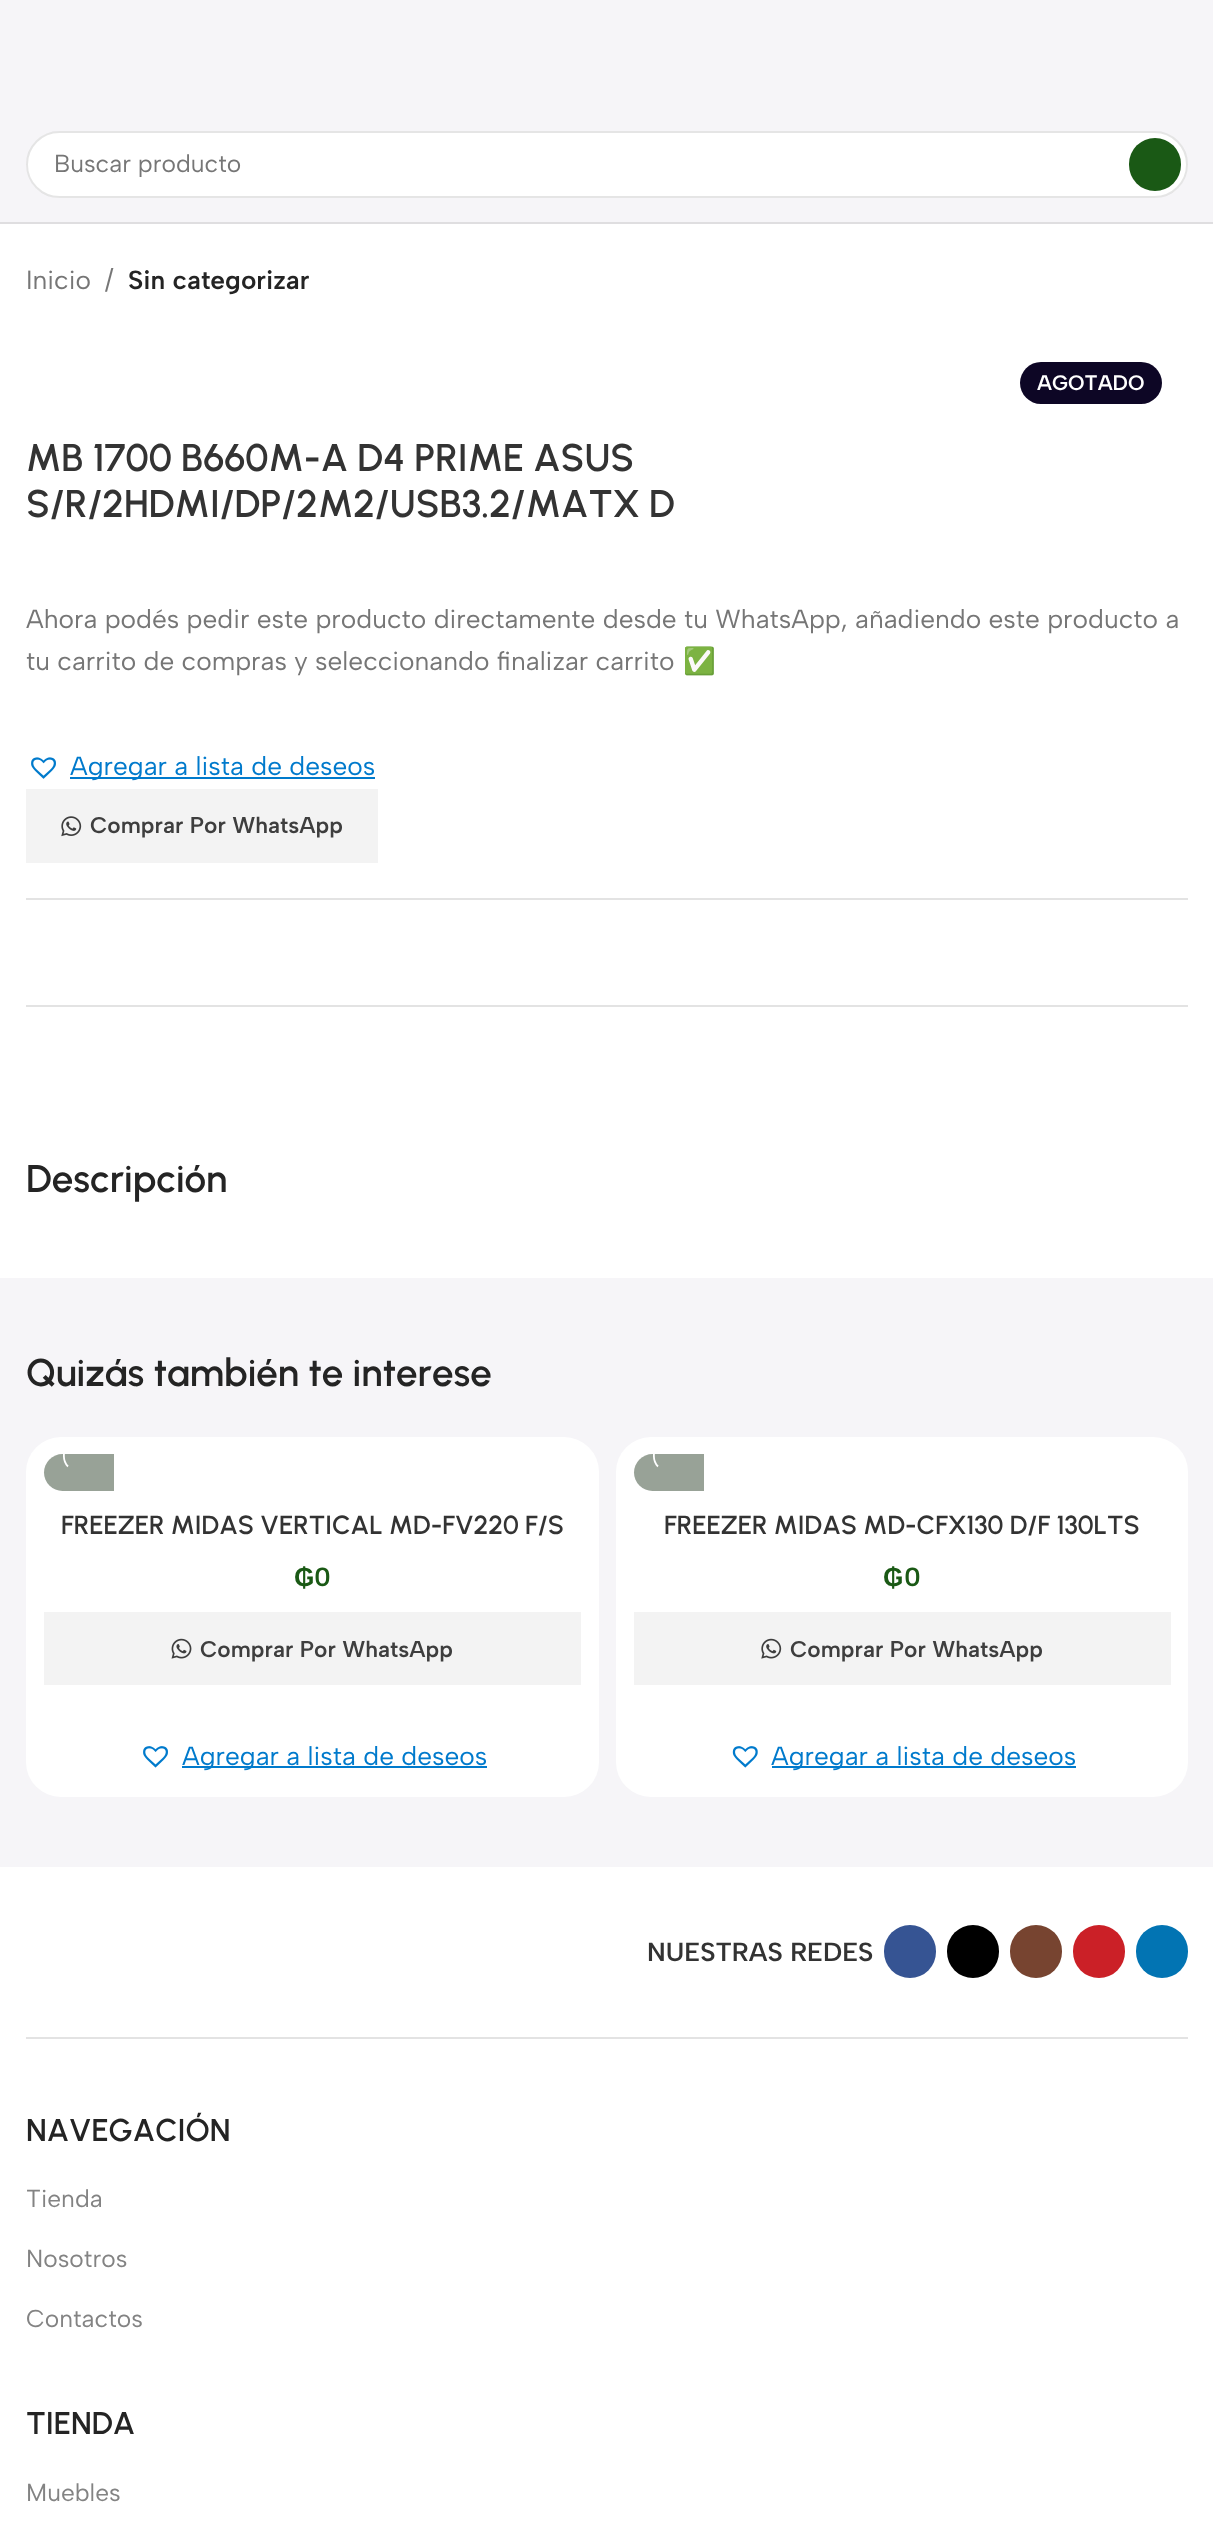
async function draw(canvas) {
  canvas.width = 1213
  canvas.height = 2534
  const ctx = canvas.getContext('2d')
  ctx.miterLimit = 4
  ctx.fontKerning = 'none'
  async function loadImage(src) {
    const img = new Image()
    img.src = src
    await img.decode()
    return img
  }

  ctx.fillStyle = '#fff'
  ctx.fillRect(0, 0, 1213, 2534)
  ctx.fillStyle = '#f6f5f8'
  ctx.fillRect(0, 0, 1213, 222)
  ctx.fillStyle = '#dfdee0'
  ctx.fillRect(0, 222, 1213, 2)
  ctx.fillStyle = '#fff'
  ctx.beginPath()
  ctx.roundRect(26, 131, 1162, 67, 33.5)
  ctx.fill()
  ctx.beginPath()
  ctx.roundRect(27, 132, 1160, 65, 32.5)
  ctx.strokeStyle = '#0000001a'
  ctx.lineWidth = 2
  ctx.stroke()
  ctx.font = '24.5px Albert Sans'
  ctx.fillStyle = '#767676'
  ctx.fillText('Buscar producto', 54, 172)
  ctx.fillStyle = '#1a5915'
  ctx.beginPath()
  ctx.roundRect(1129, 138, 52, 53, 26)
  ctx.fill()
  ctx.font = '26.25px Albert Sans'
  ctx.fillStyle = '#767676'
  ctx.fillText('Inicio', 26, 289)
  ctx.fillText('/', 105, 289)
  ctx.font = '600 26.25px Albert Sans'
  ctx.fillStyle = '#242424'
  ctx.fillText('Sin categorizar', 128, 289)
  ctx.fillStyle = '#0d0625'
  ctx.beginPath()
  ctx.roundRect(1020, 362, 142, 42, 21)
  ctx.fill()
  ctx.font = '600 21px Albert Sans'
  ctx.fillStyle = '#fff'
  ctx.fillText('AGOTADO', 1037, 390)
  ctx.font = '600 38.5px Urbanist'
  ctx.fillStyle = '#333'
  ctx.fillText('MB 1700 B660M-A D4 PRIME ASUS', 26, 471)
  ctx.fillText('S/R/2HDMI/DP/2M2/USB3.2/MATX', 26, 517)
  ctx.fillText('D', 649, 517)
  ctx.font = '26.25px Albert Sans'
  ctx.fillStyle = '#767676'
  ctx.fillText('Ahora podés pedir este producto directamente desde tu WhatsApp, añadiendo este producto a', 26, 628)
  ctx.fillText('tu carrito de compras y seleccionando finalizar carrito', 26, 670)
  ctx.font = '26.25px Noto Color Emoji'
  ctx.fillText('✅', 683, 670)
  ctx.drawImage(await loadImage('image0.png'), 31, 757, 25, 22)
  ctx.fillStyle = '#007acc'
  ctx.fillRect(70, 777, 305, 2)
  ctx.font = '26.25px Albert Sans'
  ctx.fillText('Agregar a lista de deseos', 70, 775)
  ctx.fillStyle = '#f3f3f3'
  ctx.fillRect(26, 789, 352, 74)
  ctx.drawImage(await loadImage('image1.png'), 61, 816, 21, 21)
  ctx.font = '600 22.75px Albert Sans'
  ctx.fillStyle = '#3e3e3e'
  ctx.fillText('Comprar Por WhatsApp', 90, 833)
  ctx.fillStyle = '#e3e3e3'
  ctx.fillRect(26, 898, 1162, 2)
  ctx.fillRect(26, 1005, 1162, 2)
  ctx.font = '600 38.5px Urbanist'
  ctx.fillStyle = '#242424'
  ctx.fillText('Descripción', 26, 1192)
  ctx.fillStyle = '#f6f5f8'
  ctx.fillRect(0, 1278, 1213, 589)
  ctx.fillStyle = '#242424'
  ctx.fillText('Quizás también te interese', 26, 1386)
  ctx.fillStyle = '#fff'
  ctx.beginPath()
  ctx.roundRect(26, 1437, 573, 360, 35)
  ctx.fill()
  ctx.fillStyle = '#98a297'
  ctx.beginPath()
  ctx.roundRect(44, 1454, 70, 37, [18.5, 0, 0, 18.5])
  ctx.fill()
  ctx.save()
  ctx.beginPath()
  ctx.roundRect(44, 1454, 537, 37, 18.5)
  ctx.clip()
  ctx.beginPath()
  ctx.moveTo(68, 1466.5)
  ctx.bezierCurveTo(62.5, 1461, 62.5, 1451, 68, 1445.5)
  ctx.strokeStyle = '#fff'
  ctx.lineWidth = 1.8
  ctx.stroke()
  ctx.restore()
  ctx.font = '600 26.25px Urbanist'
  ctx.fillStyle = '#333'
  ctx.fillText('FREEZER MIDAS VERTICAL MD-FV220', 61, 1534)
  ctx.fillText('F/S', 525, 1534)
  ctx.font = 'bold 26.25px Liberation Sans'
  ctx.fillStyle = '#1a5915'
  ctx.fillText('₲', 294, 1586)
  ctx.font = '600 26.25px Albert Sans'
  ctx.fillText('0', 314, 1586)
  ctx.fillStyle = '#f3f3f3'
  ctx.fillRect(44, 1612, 537, 73)
  ctx.drawImage(await loadImage('image2.png'), 171, 1638, 21, 21)
  ctx.font = '600 22.75px Albert Sans'
  ctx.fillStyle = '#3e3e3e'
  ctx.fillText('Comprar Por WhatsApp', 200, 1657)
  ctx.drawImage(await loadImage('image3.png'), 143, 1746, 25, 22)
  ctx.fillStyle = '#007acc'
  ctx.fillRect(182, 1766, 305, 2)
  ctx.font = '26.25px Albert Sans'
  ctx.fillText('Agregar a lista de deseos', 182, 1765)
  ctx.fillStyle = '#fff'
  ctx.beginPath()
  ctx.roundRect(616, 1437, 572, 360, 35)
  ctx.fill()
  ctx.fillStyle = '#98a297'
  ctx.beginPath()
  ctx.roundRect(634, 1454, 70, 37, [18.5, 0, 0, 18.5])
  ctx.fill()
  ctx.save()
  ctx.beginPath()
  ctx.roundRect(634, 1454, 537, 37, 18.5)
  ctx.clip()
  ctx.beginPath()
  ctx.moveTo(658, 1466.5)
  ctx.bezierCurveTo(652.5, 1461, 652.5, 1451, 658, 1445.5)
  ctx.strokeStyle = '#fff'
  ctx.lineWidth = 1.8
  ctx.stroke()
  ctx.restore()
  ctx.font = '600 26.25px Urbanist'
  ctx.fillStyle = '#333'
  ctx.fillText('FREEZER MIDAS MD-CFX130 D/F 130LTS', 664, 1534)
  ctx.font = 'bold 26.25px Liberation Sans'
  ctx.fillStyle = '#1a5915'
  ctx.fillText('₲', 883, 1586)
  ctx.font = '600 26.25px Albert Sans'
  ctx.fillText('0', 904, 1586)
  ctx.fillStyle = '#f3f3f3'
  ctx.fillRect(634, 1612, 537, 73)
  ctx.drawImage(await loadImage('image4.png'), 761, 1638, 21, 21)
  ctx.font = '600 22.75px Albert Sans'
  ctx.fillStyle = '#3e3e3e'
  ctx.fillText('Comprar Por WhatsApp', 790, 1657)
  ctx.drawImage(await loadImage('image5.png'), 732, 1746, 26, 22)
  ctx.fillStyle = '#007acc'
  ctx.fillRect(772, 1766, 304, 2)
  ctx.font = '26.25px Albert Sans'
  ctx.fillText('Agregar a lista de deseos', 771, 1765)
  ctx.fillStyle = '#e3e3e3'
  ctx.fillRect(26, 2037, 1162, 2)
  ctx.font = '600 26.25px Albert Sans'
  ctx.fillStyle = '#333'
  ctx.fillText('NUESTRAS REDES', 647, 1961)
  ctx.fillStyle = '#365493'
  ctx.beginPath()
  ctx.roundRect(884, 1925, 52, 53, 26)
  ctx.fill()
  ctx.fillStyle = '#000'
  ctx.beginPath()
  ctx.roundRect(947, 1925, 52, 53, 26)
  ctx.fill()
  ctx.fillStyle = '#774430'
  ctx.beginPath()
  ctx.roundRect(1010, 1925, 52, 53, 26)
  ctx.fill()
  ctx.fillStyle = '#cb2027'
  ctx.beginPath()
  ctx.roundRect(1073, 1925, 52, 53, 26)
  ctx.fill()
  ctx.fillStyle = '#0274b3'
  ctx.beginPath()
  ctx.roundRect(1136, 1925, 52, 53, 26)
  ctx.fill()
  ctx.font = '600 31.5px Urbanist'
  ctx.fillStyle = '#242424'
  ctx.fillText('NAVEGACIÓN', 26, 2141)
  ctx.font = '24.5px Albert Sans'
  ctx.fillStyle = '#838383'
  ctx.fillText('Tienda', 26, 2207)
  ctx.fillText('Nosotros', 26, 2267)
  ctx.fillText('Contactos', 26, 2327)
  ctx.font = '600 31.5px Urbanist'
  ctx.fillStyle = '#242424'
  ctx.fillText('TIENDA', 26, 2434)
  ctx.font = '24.5px Albert Sans'
  ctx.fillStyle = '#838383'
  ctx.fillText('Muebles', 26, 2501)
}

draw(document.querySelector('canvas'))
